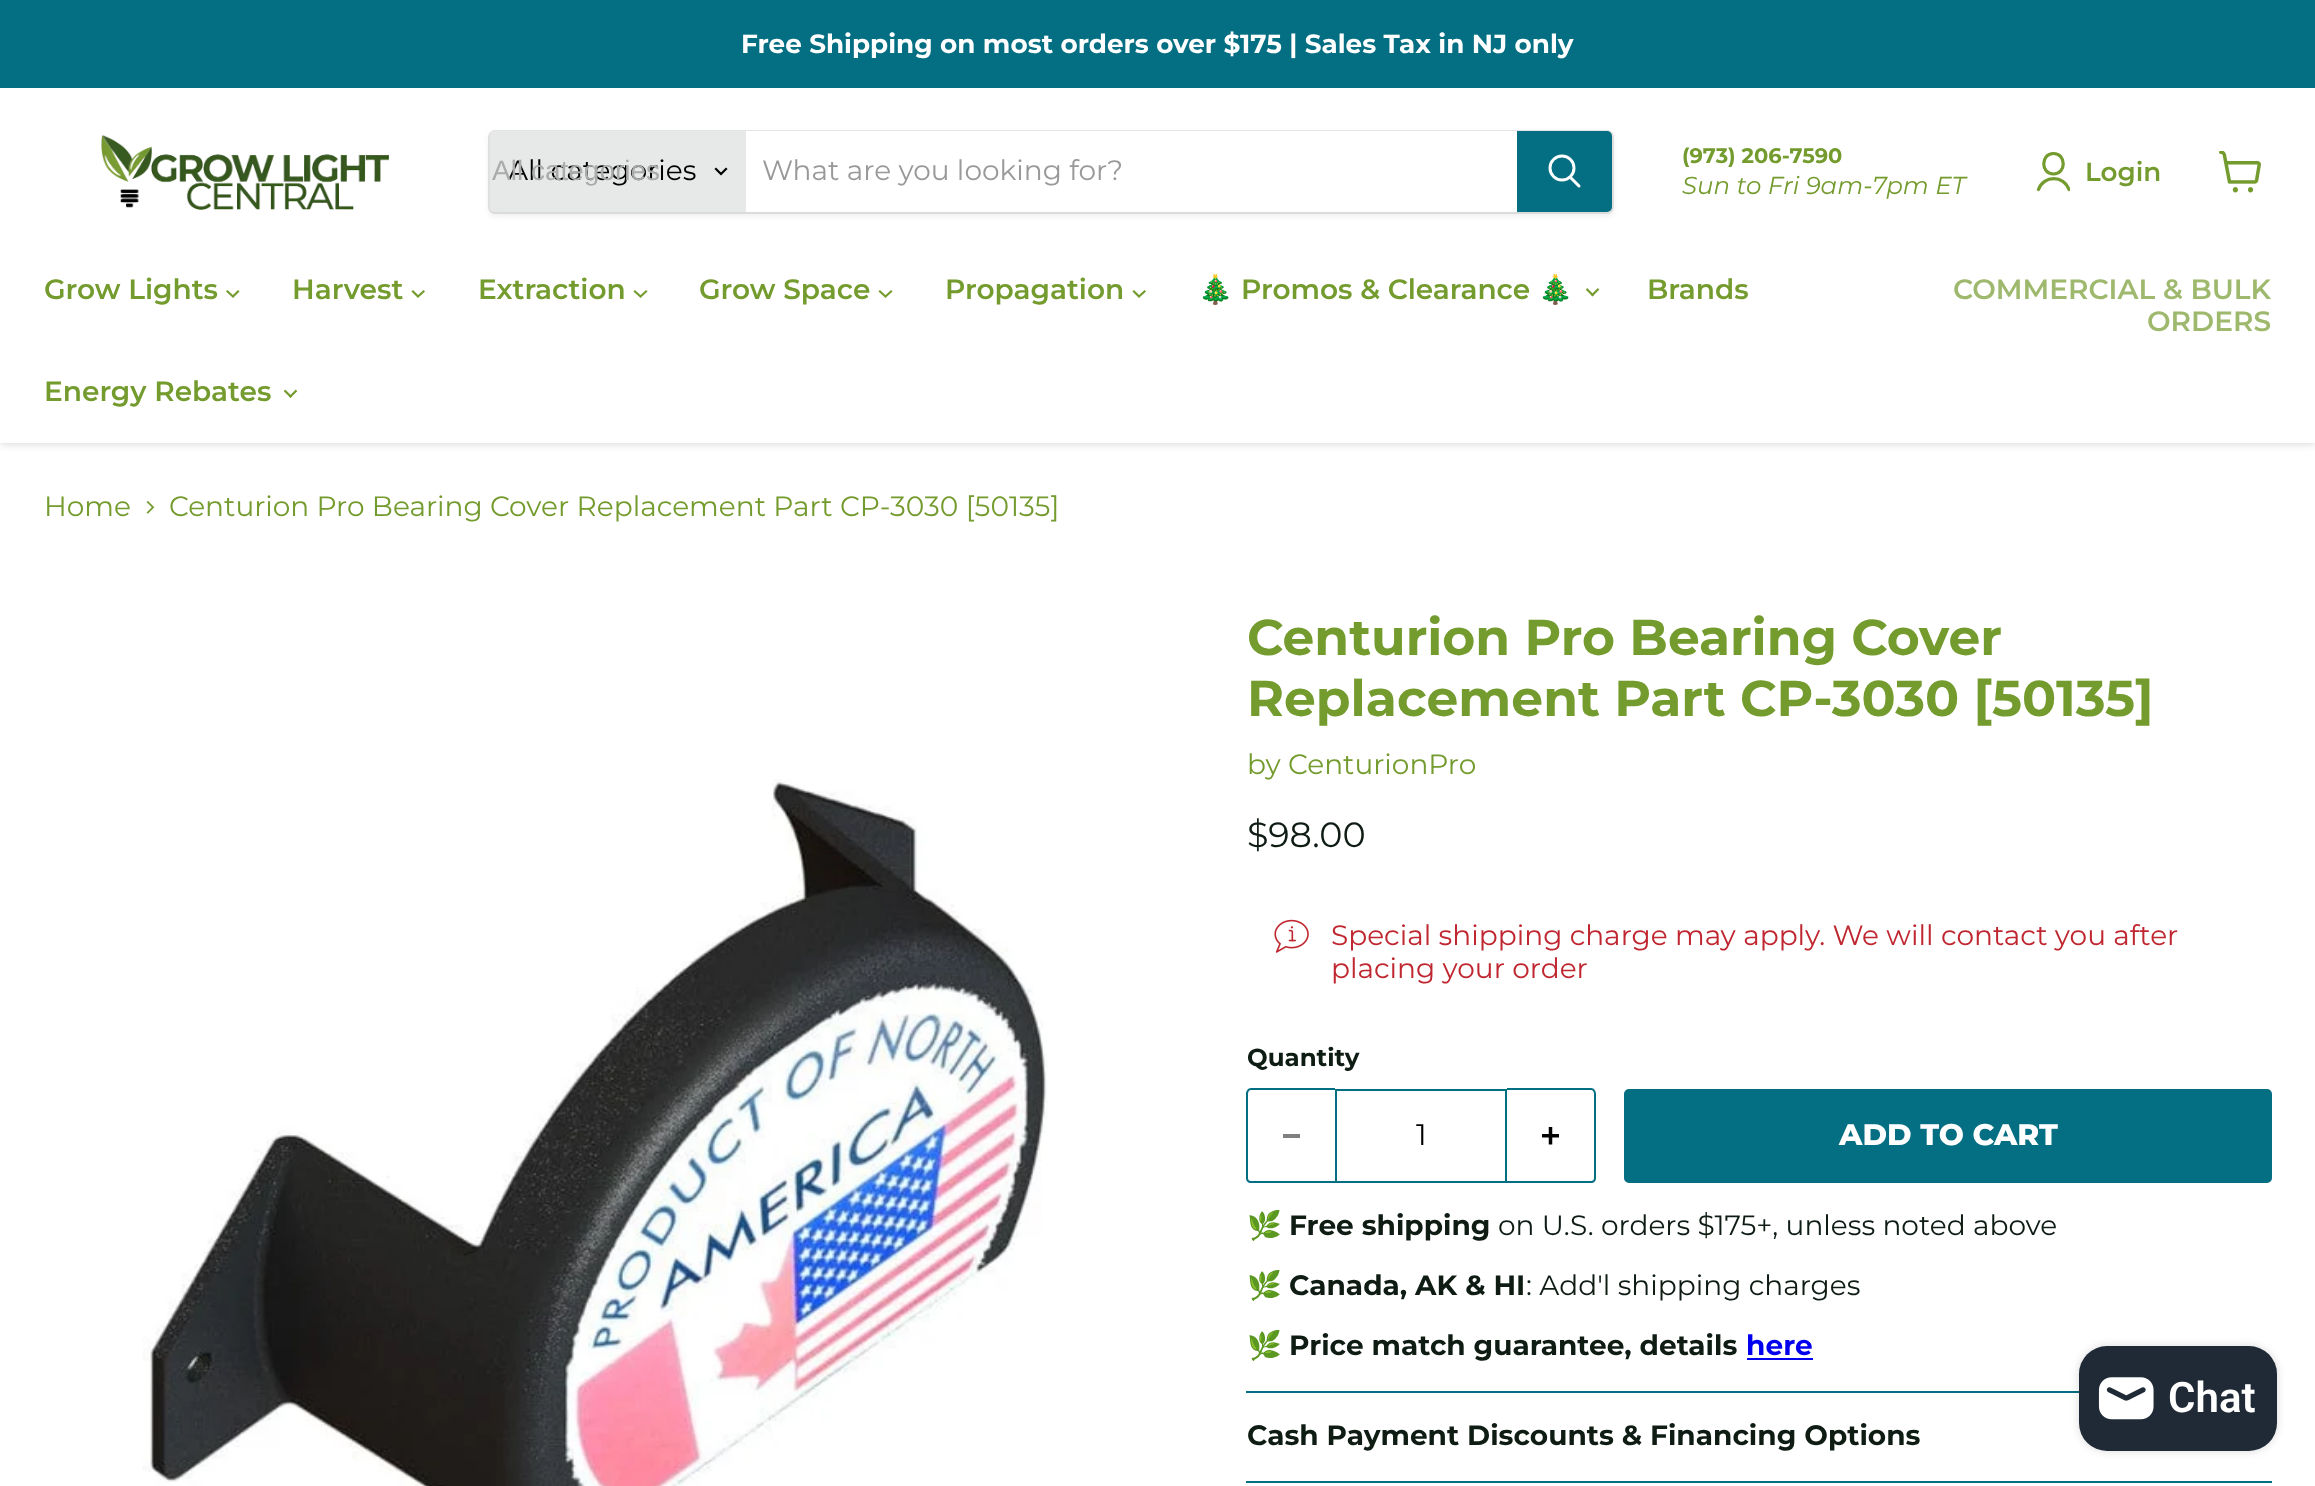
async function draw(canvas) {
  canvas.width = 2315
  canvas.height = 1486
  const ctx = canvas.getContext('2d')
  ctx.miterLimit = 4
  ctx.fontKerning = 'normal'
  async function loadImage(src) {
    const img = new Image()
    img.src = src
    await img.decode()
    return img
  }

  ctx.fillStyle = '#fff'
  ctx.fillRect(0, 0, 2315, 1486)
  ctx.fillStyle = '#80808040'
  ctx.filter = 'blur(3.5px)'
  ctx.beginPath()
  ctx.rect(0, 89, 2315, 356)
  ctx.fill()
  ctx.filter = 'none'
  ctx.fillStyle = '#046e82'
  ctx.fillRect(0, 0, 2315, 88)
  ctx.font = 'bold 26.25px Montserrat'
  ctx.fillStyle = '#fff'
  ctx.fillText('Free Shipping on most orders over $175 | Sales Tax in NJ only', 741, 53)
  ctx.fillRect(0, 88, 2315, 355)
  ctx.drawImage(await loadImage('image0.png'), 101, 135, 288, 75)
  ctx.fillStyle = '#8080801c'
  ctx.filter = 'blur(2.5px)'
  ctx.beginPath()
  ctx.roundRect(488, 133, 1126, 84, 7)
  ctx.fill()
  ctx.filter = 'none'
  ctx.beginPath()
  ctx.roundRect(489, 131, 1124, 82, 6)
  ctx.strokeStyle = '#80808033'
  ctx.lineWidth = 2
  ctx.stroke()
  ctx.fillStyle = '#e7e8e8'
  ctx.beginPath()
  ctx.roundRect(490, 131, 256, 81, [5, 0, 0, 5])
  ctx.fill()
  ctx.font = '100 28px Montserrat'
  ctx.fillStyle = '#000'
  ctx.fillText('All categories', 508, 180)
  ctx.font = '28px Liberation Sans'
  ctx.fillStyle = '#ababab'
  ctx.fillText('All categories', 492, 180)
  ctx.beginPath()
  ctx.moveTo(721, 174)
  ctx.lineTo(726, 169)
  ctx.moveTo(721, 174)
  ctx.lineTo(716, 169)
  ctx.strokeStyle = '#000'
  ctx.lineWidth = 2.2
  ctx.lineCap = 'square'
  ctx.stroke()
  ctx.fillStyle = '#fff'
  ctx.fillRect(746, 131, 771, 81)
  ctx.font = '100 28px Montserrat'
  ctx.fillStyle = '#999'
  ctx.fillText('What are you looking for?', 762, 180)
  ctx.fillStyle = '#046e82'
  ctx.beginPath()
  ctx.roundRect(1518, 132, 93, 79, [0, 4, 4, 0])
  ctx.fill()
  ctx.strokeStyle = '#046e82'
  ctx.lineWidth = 2
  ctx.stroke()
  ctx.beginPath()
  ctx.moveTo(1579, 186)
  ctx.lineTo(1570.5, 177.5)
  ctx.strokeStyle = '#fff'
  ctx.lineWidth = 3
  ctx.lineCap = 'round'
  ctx.stroke()
  ctx.beginPath()
  ctx.arc(1562, 168, 12, 0, 2 * Math.PI)
  ctx.stroke()
  ctx.font = 'bold 21px Montserrat'
  ctx.fillStyle = '#749b2e'
  ctx.fillText('(973) 206-7590', 1682, 163)
  ctx.font = 'italic 24.5px Montserrat'
  ctx.fillText('Sun to Fri 9am-7pm ET', 1682, 194)
  ctx.beginPath()
  ctx.moveTo(2053.5, 174)
  ctx.bezierCurveTo(2066.5, 174, 2066.5, 153.5, 2053.5, 153.5)
  ctx.bezierCurveTo(2040.5, 153.5, 2040.5, 174, 2053.5, 174)
  ctx.closePath()
  ctx.strokeStyle = '#749b2e'
  ctx.lineWidth = 3.2
  ctx.lineJoin = 'round'
  ctx.stroke()
  ctx.save()
  ctx.beginPath()
  ctx.rect(2035, 151, 35, 42)
  ctx.clip()
  ctx.beginPath()
  ctx.moveTo(2069, 189.5)
  ctx.bezierCurveTo(2064, 175, 2043.5, 175, 2038.5, 189.5)
  ctx.stroke()
  ctx.restore()
  ctx.font = '600 26.25px Montserrat'
  ctx.fillText('Login', 2085, 181)
  ctx.drawImage(await loadImage('image1.png'), 2219, 151, 42, 42)
  ctx.font = '600 28px Montserrat'
  ctx.fillText('Grow Lights', 44, 299)
  ctx.beginPath()
  ctx.moveTo(233, 296.5)
  ctx.lineTo(238, 291.5)
  ctx.moveTo(233, 296.5)
  ctx.lineTo(227.5, 291.5)
  ctx.lineWidth = 2.2
  ctx.lineCap = 'square'
  ctx.lineJoin = 'miter'
  ctx.stroke()
  ctx.fillText('Harvest', 292, 299)
  ctx.beginPath()
  ctx.moveTo(418, 296.5)
  ctx.lineTo(423.5, 291.5)
  ctx.moveTo(418, 296.5)
  ctx.lineTo(413, 291.5)
  ctx.stroke()
  ctx.fillText('Extraction', 478, 299)
  ctx.beginPath()
  ctx.moveTo(640.5, 296.5)
  ctx.lineTo(646, 291.5)
  ctx.moveTo(640.5, 296.5)
  ctx.lineTo(635, 291.5)
  ctx.stroke()
  ctx.fillText('Grow Space', 699, 299)
  ctx.beginPath()
  ctx.moveTo(885.5, 296.5)
  ctx.lineTo(891, 291.5)
  ctx.moveTo(885.5, 296.5)
  ctx.lineTo(880, 291.5)
  ctx.stroke()
  ctx.fillText('Propagation', 945, 299)
  ctx.beginPath()
  ctx.moveTo(1139, 296.5)
  ctx.lineTo(1144.5, 291.5)
  ctx.moveTo(1139, 296.5)
  ctx.lineTo(1134, 291.5)
  ctx.stroke()
  ctx.font = 'bold 28px Noto Color Emoji'
  ctx.fillText('🎄', 1198, 299)
  ctx.font = '600 28px Montserrat'
  ctx.fillText('Promos & Clearance', 1241, 299)
  ctx.font = 'bold 28px Noto Color Emoji'
  ctx.fillText('🎄', 1538, 299)
  ctx.drawImage(await loadImage('image2.png'), 1586, 288, 14, 9)
  ctx.font = '600 28px Montserrat'
  ctx.fillText('Brands', 1647, 299)
  ctx.fillText('Energy Rebates', 44, 401)
  ctx.drawImage(await loadImage('image3.png'), 284, 389, 14, 9)
  ctx.fillStyle = '#9eb96d'
  ctx.fillText('COMMERCIAL & BULK', 1953, 299)
  ctx.fillText('ORDERS', 2147, 331)
  ctx.font = '100 28px Montserrat'
  ctx.fillStyle = '#749b2e'
  ctx.fillText('Home', 44, 516)
  ctx.drawImage(await loadImage('image4.png'), 146, 501, 9, 13)
  ctx.fillText('Centurion Pro Bearing Cover Replacement Part CP-3030 [50135]', 169, 516)
  ctx.drawImage(await loadImage('image5.png'), 142, 779, 906, 707)
  ctx.font = 'bold 50.4px Montserrat'
  ctx.fillText('Centurion Pro Bearing Cover', 1247, 655)
  ctx.fillText('Replacement Part CP-3030 [50135]', 1247, 716)
  ctx.font = '100 28px Montserrat'
  ctx.fillText('by CenturionPro', 1247, 774)
  ctx.font = '100 35px Montserrat'
  ctx.fillStyle = '#0e1c14'
  ctx.fillText('$98.00', 1247, 847)
  ctx.drawImage(await loadImage('image6.png'), 1274, 919, 35, 34)
  ctx.font = '100 28px Montserrat'
  ctx.fillStyle = '#bf262f'
  ctx.fillText('Special shipping charge may apply. We will contact you after', 1331, 945)
  ctx.fillText('placing your order', 1331, 978)
  ctx.font = 'bold 24.5px Montserrat'
  ctx.fillStyle = '#0e1c14'
  ctx.fillText('Quantity', 1247, 1066)
  ctx.fillStyle = '#046e82'
  ctx.beginPath()
  ctx.moveTo(1251, 1088)
  ctx.lineTo(1335, 1088)
  ctx.lineTo(1335, 1183)
  ctx.lineTo(1251, 1183)
  ctx.bezierCurveTo(1248, 1183, 1246, 1181, 1246, 1178)
  ctx.lineTo(1246, 1094)
  ctx.bezierCurveTo(1246, 1091, 1248, 1088, 1251, 1088)
  ctx.closePath()
  ctx.moveTo(1251, 1090)
  ctx.lineTo(1335, 1090)
  ctx.lineTo(1335, 1181)
  ctx.lineTo(1251, 1181)
  ctx.bezierCurveTo(1249, 1181, 1248, 1180, 1248, 1178)
  ctx.lineTo(1248, 1094)
  ctx.bezierCurveTo(1248, 1092, 1249, 1090, 1251, 1090)
  ctx.closePath()
  ctx.fill('evenodd')
  ctx.fillStyle = '#808080'
  ctx.fillRect(1283, 1134, 17, 4)
  ctx.strokeStyle = '#046e82'
  ctx.lineWidth = 2
  ctx.strokeRect(1336, 1090, 170, 92)
  ctx.font = '100 29.75px Montserrat'
  ctx.fillStyle = '#000'
  ctx.fillText('1', 1416, 1145)
  ctx.fillStyle = '#046e82'
  ctx.beginPath()
  ctx.moveTo(1507, 1088)
  ctx.lineTo(1591, 1088)
  ctx.bezierCurveTo(1594, 1088, 1596, 1091, 1596, 1094)
  ctx.lineTo(1596, 1178)
  ctx.bezierCurveTo(1596, 1181, 1594, 1183, 1591, 1183)
  ctx.lineTo(1507, 1183)
  ctx.closePath()
  ctx.moveTo(1507, 1090)
  ctx.lineTo(1591, 1090)
  ctx.bezierCurveTo(1593, 1090, 1594, 1092, 1594, 1094)
  ctx.lineTo(1594, 1178)
  ctx.bezierCurveTo(1594, 1180, 1593, 1181, 1591, 1181)
  ctx.lineTo(1507, 1181)
  ctx.closePath()
  ctx.fill('evenodd')
  ctx.drawImage(await loadImage('image7.png'), 1542, 1127, 17, 18)
  ctx.beginPath()
  ctx.roundRect(1625, 1090, 646, 92, 4)
  ctx.fill()
  ctx.stroke()
  ctx.font = '800 29.75px Montserrat'
  ctx.fillStyle = '#fff'
  ctx.fillText('ADD TO CART', 1839, 1145)
  ctx.font = 'bold 28px Noto Color Emoji'
  ctx.fillStyle = '#0e1c14'
  ctx.fillText('🌿', 1247, 1235)
  ctx.font = 'bold 28px Montserrat'
  ctx.fillText('Free shipping', 1289, 1235)
  ctx.font = '100 28px Montserrat'
  ctx.fillText('on U.S. orders $175+, unless noted above', 1498, 1235)
  ctx.font = 'bold 28px Noto Color Emoji'
  ctx.fillText('🌿', 1247, 1295)
  ctx.font = 'bold 28px Montserrat'
  ctx.fillText('Canada, AK & HI', 1289, 1295)
  ctx.font = '100 28px Montserrat'
  ctx.fillText(': Add\'l shipping charges', 1526, 1295)
  ctx.font = 'bold 28px Noto Color Emoji'
  ctx.fillText('🌿', 1247, 1355)
  ctx.font = 'bold 28px Montserrat'
  ctx.fillText('Price match guarantee, details', 1289, 1355)
  ctx.fillStyle = '#00e'
  ctx.fillText('here', 1746, 1355)
  ctx.fillRect(1747, 1358, 66, 2)
  ctx.fillStyle = '#046e82'
  ctx.fillRect(1246, 1391, 833, 2)
  ctx.fillRect(1246, 1481, 1026, 2)
  ctx.fillStyle = '#0e1c14'
  ctx.fillText('Cash Payment Discounts & Financing Options', 1247, 1445)
  ctx.fillStyle = '#00000026'
  ctx.filter = 'blur(4.5px)'
  ctx.beginPath()
  ctx.roundRect(2079, 1346, 198, 105, 28)
  ctx.fill()
  ctx.filter = 'none'
  ctx.fillStyle = '#202a36'
  ctx.beginPath()
  ctx.roundRect(2079, 1346, 198, 105, 28)
  ctx.fill()
  ctx.drawImage(await loadImage('image8.png'), 2098, 1377, 56, 43)
  ctx.font = '600 42px Roboto'
  ctx.fillStyle = '#fff'
  ctx.fillText('Chat', 2168, 1412)
}

draw(document.querySelector('canvas'))
